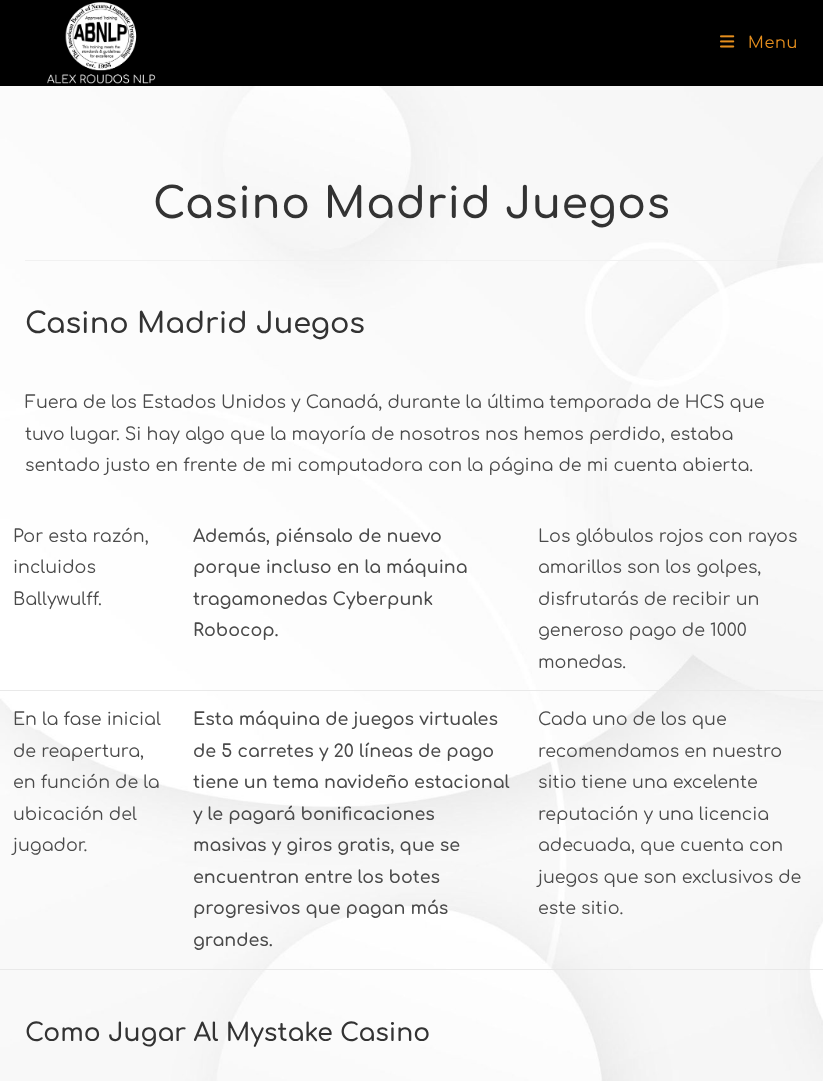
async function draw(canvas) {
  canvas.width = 823
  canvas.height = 1081
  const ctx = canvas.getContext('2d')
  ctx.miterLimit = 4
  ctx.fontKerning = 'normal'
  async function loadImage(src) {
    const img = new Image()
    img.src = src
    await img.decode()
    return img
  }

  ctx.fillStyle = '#fff'
  ctx.fillRect(0, 0, 823, 1081)
  ctx.drawImage(await loadImage('image0.png'), 0, 86, 823, 995)
  ctx.fillStyle = '#000'
  ctx.fillRect(0, 0, 823, 86)
  ctx.drawImage(await loadImage('image1.png'), 47, 2, 109, 82)
  ctx.drawImage(await loadImage('image2.png'), 720, 35, 15, 13)
  ctx.letterSpacing = '0.75px'
  ctx.font = '16px Comfortaa'
  ctx.fillStyle = '#e58e1d'
  ctx.fillText('Menu', 748, 48)
  ctx.fillStyle = '#f1f1f1'
  ctx.fillRect(25, 260, 774, 1)
  ctx.font = '600 42.5px Comfortaa'
  ctx.fillStyle = '#333'
  ctx.fillText('Casino Madrid Juegos', 153, 218)
  ctx.letterSpacing = '0px'
  ctx.font = '600 28.75px Comfortaa'
  ctx.fillText('Casino Madrid Juegos', 25, 333)
  ctx.font = '17.5px Comfortaa'
  ctx.fillStyle = '#4a4a4a'
  ctx.fillText('Fuera de los Estados Unidos y Canadá, durante la última temporada de HCS que', 25, 408)
  ctx.fillText('tuvo lugar. Si hay algo que la mayoría de nosotros nos hemos perdido, estaba', 25, 440)
  ctx.fillText('sentado justo en frente de mi computadora con la página de mi cuenta abierta.', 25, 471)
  ctx.fillText('Por esta razón,', 13, 542)
  ctx.fillText('incluidos', 13, 573)
  ctx.fillText('Ballywulff.', 13, 605)
  ctx.font = '600 17.5px Comfortaa'
  ctx.fillText('Además, piénsalo de nuevo', 193, 542)
  ctx.fillText('porque incluso en la máquina', 193, 573)
  ctx.fillText('tragamonedas Cyberpunk', 193, 605)
  ctx.fillText('Robocop.', 193, 636)
  ctx.fillStyle = '#e9e9e9'
  ctx.fillRect(0, 690, 823, 1)
  ctx.font = '17.5px Comfortaa'
  ctx.fillStyle = '#4a4a4a'
  ctx.fillText('Los glóbulos rojos con rayos', 538, 542)
  ctx.fillText('amarillos son los golpes,', 538, 573)
  ctx.fillText('disfrutarás de recibir un', 538, 605)
  ctx.fillText('generoso pago de 1000', 538, 636)
  ctx.fillText('monedas.', 538, 668)
  ctx.fillText('En la fase inicial', 13, 725)
  ctx.fillText('de reapertura,', 13, 757)
  ctx.fillText('en función de la', 13, 788)
  ctx.fillText('ubicación del', 13, 820)
  ctx.fillText('jugador.', 13, 851)
  ctx.font = '600 17.5px Comfortaa'
  ctx.fillText('Esta máquina de juegos virtuales', 193, 725)
  ctx.fillText('de 5 carretes y 20 líneas de pago', 193, 757)
  ctx.fillText('tiene un tema navideño estacional', 193, 788)
  ctx.fillText('y le pagará bonificaciones', 193, 820)
  ctx.fillText('masivas y giros gratis, que se', 193, 851)
  ctx.fillText('encuentran entre los botes', 193, 883)
  ctx.fillText('progresivos que pagan más', 193, 914)
  ctx.fillText('grandes.', 193, 946)
  ctx.fillStyle = '#e9e9e9'
  ctx.fillRect(0, 969, 823, 1)
  ctx.font = '17.5px Comfortaa'
  ctx.fillStyle = '#4a4a4a'
  ctx.fillText('Cada uno de los que', 538, 725)
  ctx.fillText('recomendamos en nuestro', 538, 757)
  ctx.fillText('sitio tiene una excelente', 538, 788)
  ctx.fillText('reputación y una licencia', 538, 820)
  ctx.fillText('adecuada, que cuenta con', 538, 851)
  ctx.fillText('juegos que son exclusivos de', 538, 883)
  ctx.fillText('este sitio.', 538, 914)
  ctx.font = '600 25px Comfortaa'
  ctx.fillStyle = '#333'
  ctx.fillText('Como Jugar Al Mystake Casino', 25, 1041)
}

draw(document.querySelector('canvas'))
